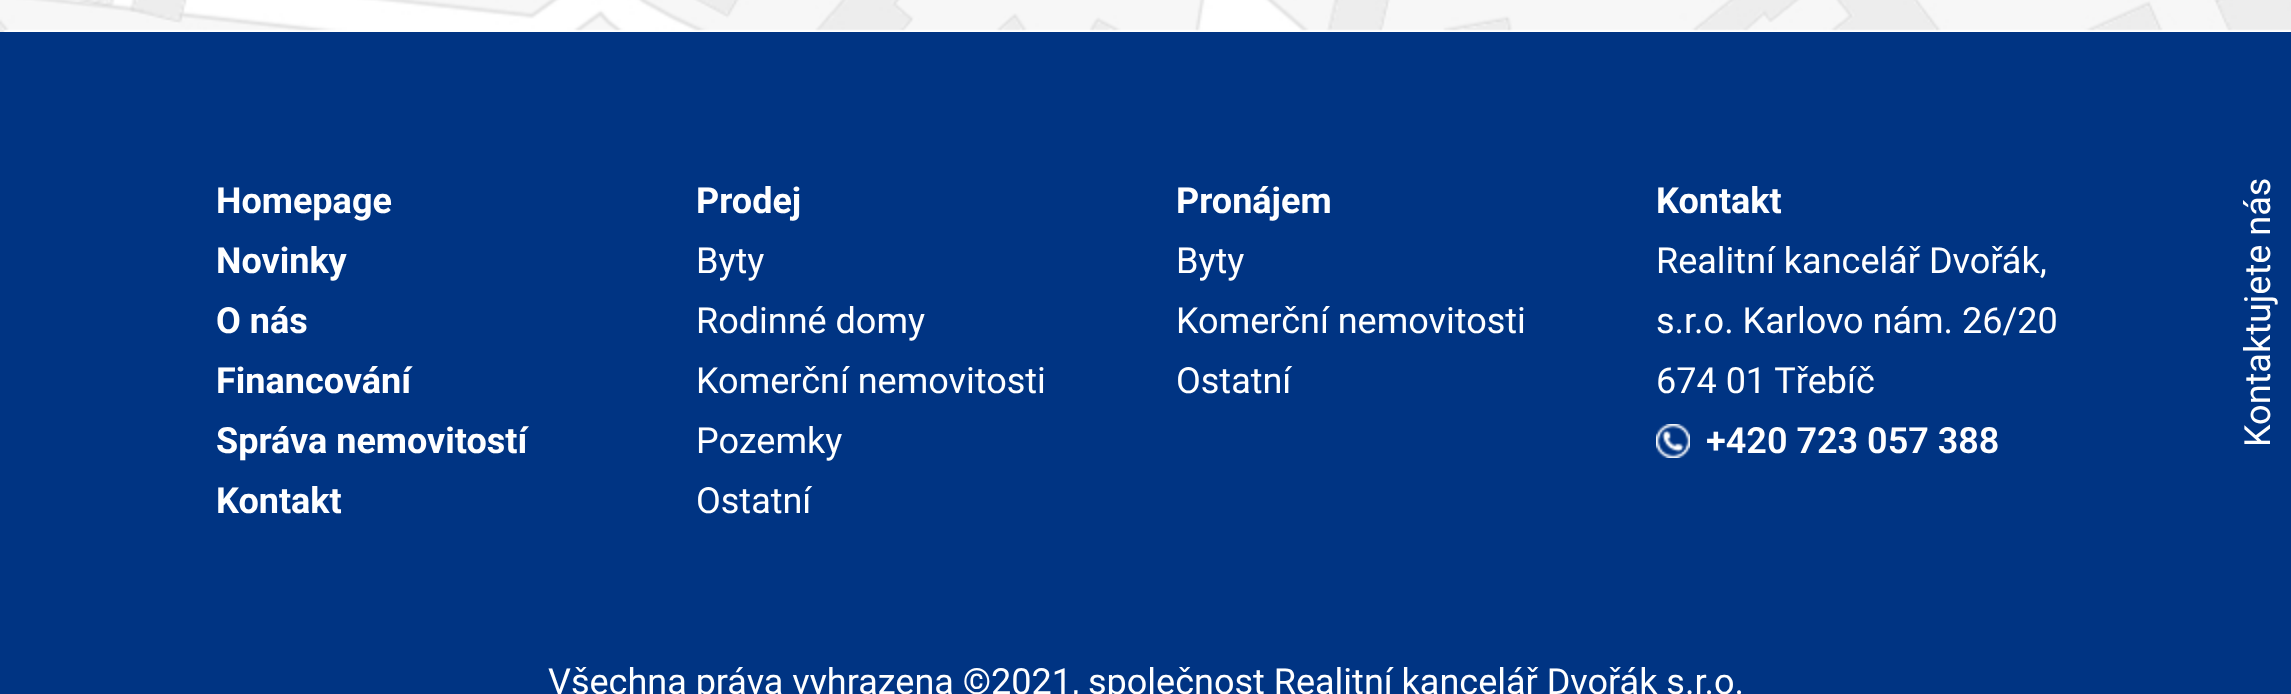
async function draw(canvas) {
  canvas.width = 2291
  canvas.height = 694
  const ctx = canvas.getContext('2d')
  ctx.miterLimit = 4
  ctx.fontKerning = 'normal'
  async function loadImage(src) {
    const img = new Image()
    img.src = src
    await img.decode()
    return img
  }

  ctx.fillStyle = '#fff'
  ctx.fillRect(0, 0, 2291, 694)
  ctx.drawImage(await loadImage('image0.png'), 0, 0, 2291, 32)
  ctx.fillStyle = '#003483'
  ctx.fillRect(0, 32, 2291, 662)
  ctx.font = 'bold 36px Roboto'
  ctx.fillStyle = '#fff'
  ctx.fillText('Homepage', 216, 213)
  ctx.fillText('Novinky', 216, 273)
  ctx.fillText('O nás', 216, 333)
  ctx.fillText('Financování', 216, 393)
  ctx.fillText('Správa nemovitostí', 216, 453)
  ctx.fillText('Kontakt', 216, 513)
  ctx.fillText('Prodej', 696, 213)
  ctx.font = '36px Roboto'
  ctx.fillText('Byty', 696, 273)
  ctx.fillText('Rodinné domy', 696, 333)
  ctx.fillText('Komerční nemovitosti', 696, 393)
  ctx.fillText('Pozemky', 696, 453)
  ctx.fillText('Ostatní', 696, 513)
  ctx.font = 'bold 36px Roboto'
  ctx.fillText('Pronájem', 1176, 213)
  ctx.font = '36px Roboto'
  ctx.fillText('Byty', 1176, 273)
  ctx.fillText('Komerční nemovitosti', 1176, 333)
  ctx.fillText('Ostatní', 1176, 393)
  ctx.font = 'bold 36px Roboto'
  ctx.fillText('Kontakt', 1656, 213)
  ctx.font = '36px Roboto'
  ctx.fillText('Realitní kancelář Dvořák,', 1656, 273)
  ctx.fillText('s.r.o. Karlovo nám. 26/20', 1656, 333)
  ctx.fillText('674 01 Třebíč', 1656, 393)
  ctx.drawImage(await loadImage('image1.png'), 1656, 424, 34, 34)
  ctx.font = '600 36px Roboto'
  ctx.fillText('+420 723 057 388', 1706, 453)
  ctx.font = '36px Roboto'
  ctx.fillText('Všechna práva vyhrazena ©2021, společnost Realitní kancelář Dvořák s.r.o.', 548, 694)
  ctx.save()
  ctx.translate(2270, 447)
  ctx.rotate(-90 * Math.PI / 180)
  ctx.fillText('Kontaktujete nás', 0, 0)
  ctx.restore()
}

draw(document.querySelector('canvas'))
